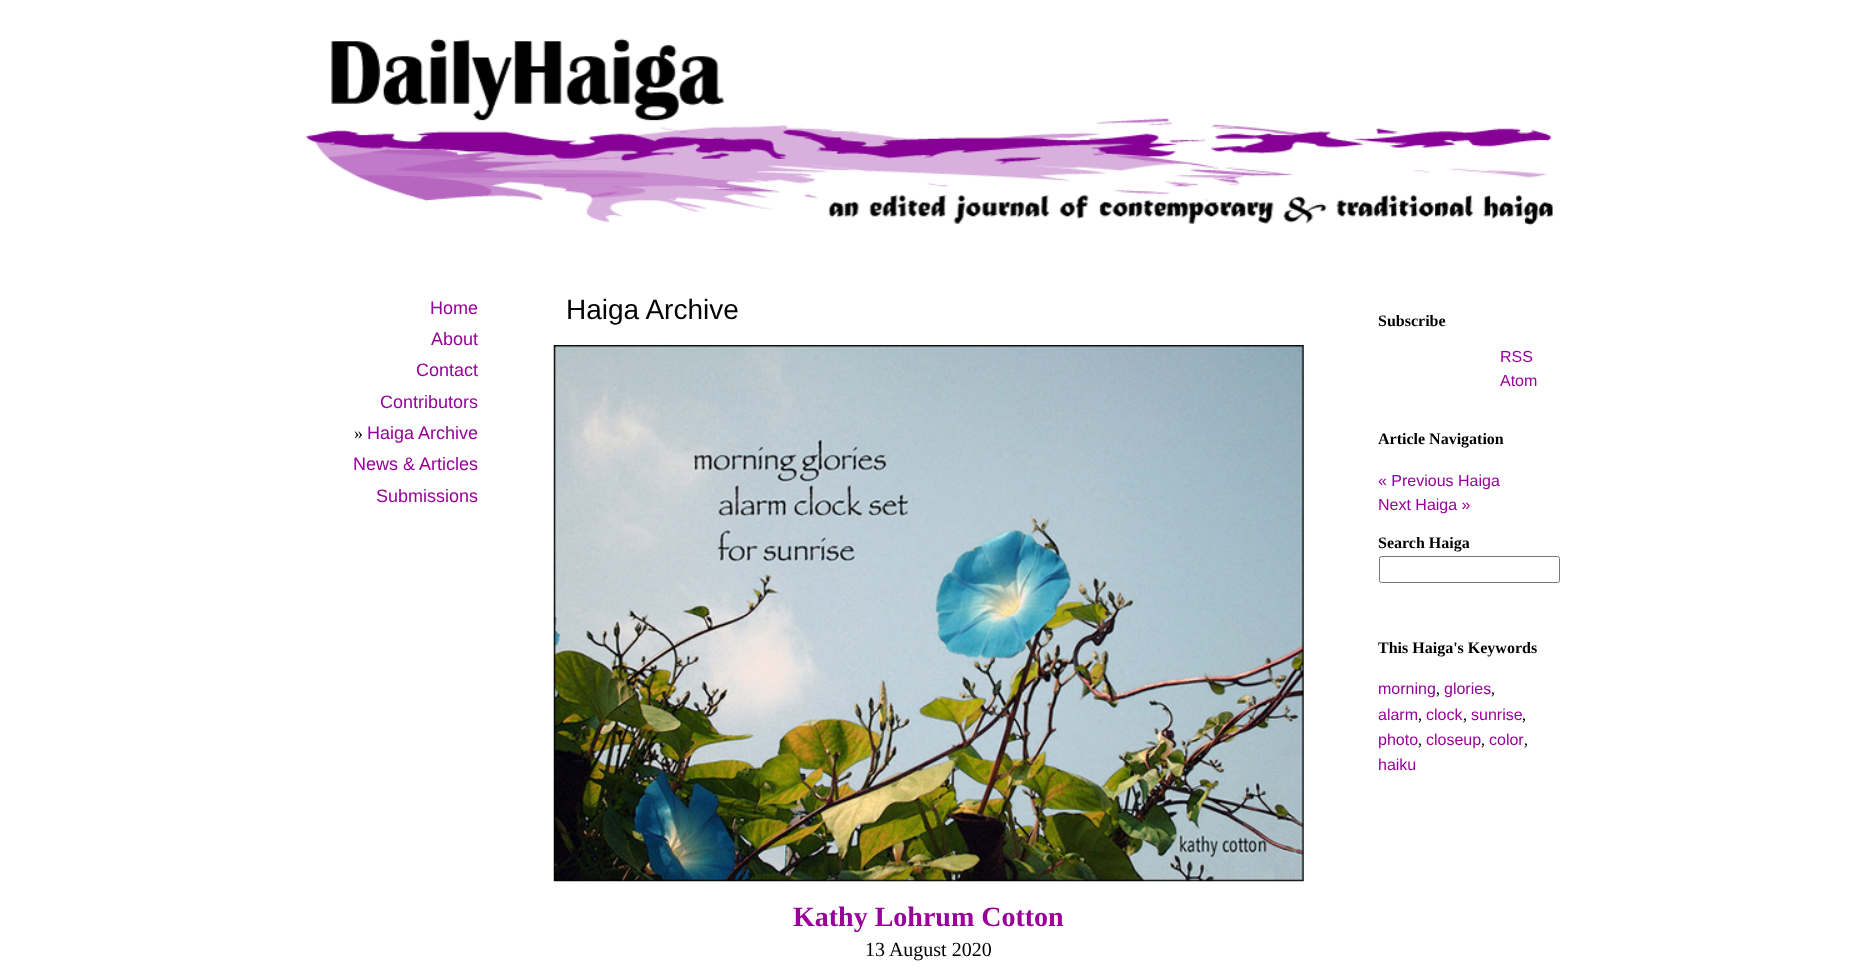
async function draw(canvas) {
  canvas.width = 1856
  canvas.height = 978
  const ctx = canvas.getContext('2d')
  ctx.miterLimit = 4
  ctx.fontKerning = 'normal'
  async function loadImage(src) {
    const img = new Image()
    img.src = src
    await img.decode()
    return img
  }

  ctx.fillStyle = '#fff'
  ctx.fillRect(0, 0, 1856, 978)
  ctx.drawImage(await loadImage('image0.png'), 305, 38, 1248, 188)
  ctx.font = '18px Liberation Sans'
  ctx.fillStyle = '#909'
  ctx.fillText('Home', 430, 314)
  ctx.fillText('About', 431, 345)
  ctx.fillText('Contact', 416, 376)
  ctx.fillText('Contributors', 380, 408)
  ctx.font = '18px Liberation Serif'
  ctx.fillStyle = '#000'
  ctx.fillText('»', 354, 439)
  ctx.font = '18px Liberation Sans'
  ctx.fillStyle = '#909'
  ctx.fillText('Haiga Archive', 367, 439)
  ctx.fillText('News & Articles', 353, 470)
  ctx.fillText('Submissions', 376, 502)
  ctx.font = '28px Liberation Sans'
  ctx.fillStyle = '#000'
  ctx.fillText('Haiga Archive', 566, 319)
  ctx.drawImage(await loadImage('image1.png'), 553, 345, 751, 537)
  ctx.font = 'bold 28px Liberation Serif'
  ctx.fillStyle = '#909'
  ctx.fillText('Kathy Lohrum Cotton', 793, 926)
  ctx.font = '20px Liberation Serif'
  ctx.fillStyle = '#000'
  ctx.fillText('13 August 2020', 865, 956)
  ctx.font = 'bold 16px Liberation Serif'
  ctx.fillText('Subscribe', 1378, 326)
  ctx.font = '16px Liberation Sans'
  ctx.fillStyle = '#909'
  ctx.fillText('RSS', 1500, 362)
  ctx.fillText('Atom', 1500, 386)
  ctx.font = 'bold 16px Liberation Serif'
  ctx.fillStyle = '#000'
  ctx.fillText('Article Navigation', 1378, 444)
  ctx.font = '16px Liberation Sans'
  ctx.fillStyle = '#909'
  ctx.fillText('« Previous Haiga', 1378, 486)
  ctx.fillText('Next Haiga »', 1378, 510)
  ctx.font = 'bold 16px Liberation Serif'
  ctx.fillStyle = '#000'
  ctx.fillText('Search Haiga', 1378, 548)
  ctx.beginPath()
  ctx.roundRect(1379.5, 556.5, 180, 26, 2)
  ctx.strokeStyle = '#767676'
  ctx.stroke()
  ctx.fillText('This Haiga\'s Keywords', 1378, 653)
  ctx.font = '16px Liberation Sans'
  ctx.fillStyle = '#909'
  ctx.fillText('morning', 1378, 694)
  ctx.font = '16px Liberation Serif'
  ctx.fillStyle = '#000'
  ctx.fillText(',', 1436, 694)
  ctx.font = '16px Liberation Sans'
  ctx.fillStyle = '#909'
  ctx.fillText('glories', 1444, 694)
  ctx.font = '16px Liberation Serif'
  ctx.fillStyle = '#000'
  ctx.fillText(',', 1491, 694)
  ctx.font = '16px Liberation Sans'
  ctx.fillStyle = '#909'
  ctx.fillText('alarm', 1378, 720)
  ctx.font = '16px Liberation Serif'
  ctx.fillStyle = '#000'
  ctx.fillText(',', 1418, 720)
  ctx.font = '16px Liberation Sans'
  ctx.fillStyle = '#909'
  ctx.fillText('clock', 1426, 720)
  ctx.font = '16px Liberation Serif'
  ctx.fillStyle = '#000'
  ctx.fillText(',', 1463, 720)
  ctx.font = '16px Liberation Sans'
  ctx.fillStyle = '#909'
  ctx.fillText('sunrise', 1471, 720)
  ctx.font = '16px Liberation Serif'
  ctx.fillStyle = '#000'
  ctx.fillText(',', 1522, 720)
  ctx.font = '16px Liberation Sans'
  ctx.fillStyle = '#909'
  ctx.fillText('photo', 1378, 745)
  ctx.font = '16px Liberation Serif'
  ctx.fillStyle = '#000'
  ctx.fillText(',', 1418, 745)
  ctx.font = '16px Liberation Sans'
  ctx.fillStyle = '#909'
  ctx.fillText('closeup', 1426, 745)
  ctx.font = '16px Liberation Serif'
  ctx.fillStyle = '#000'
  ctx.fillText(',', 1481, 745)
  ctx.font = '16px Liberation Sans'
  ctx.fillStyle = '#909'
  ctx.fillText('color', 1489, 745)
  ctx.font = '16px Liberation Serif'
  ctx.fillStyle = '#000'
  ctx.fillText(',', 1524, 745)
  ctx.font = '16px Liberation Sans'
  ctx.fillStyle = '#909'
  ctx.fillText('haiku', 1378, 770)
}

draw(document.querySelector('canvas'))
